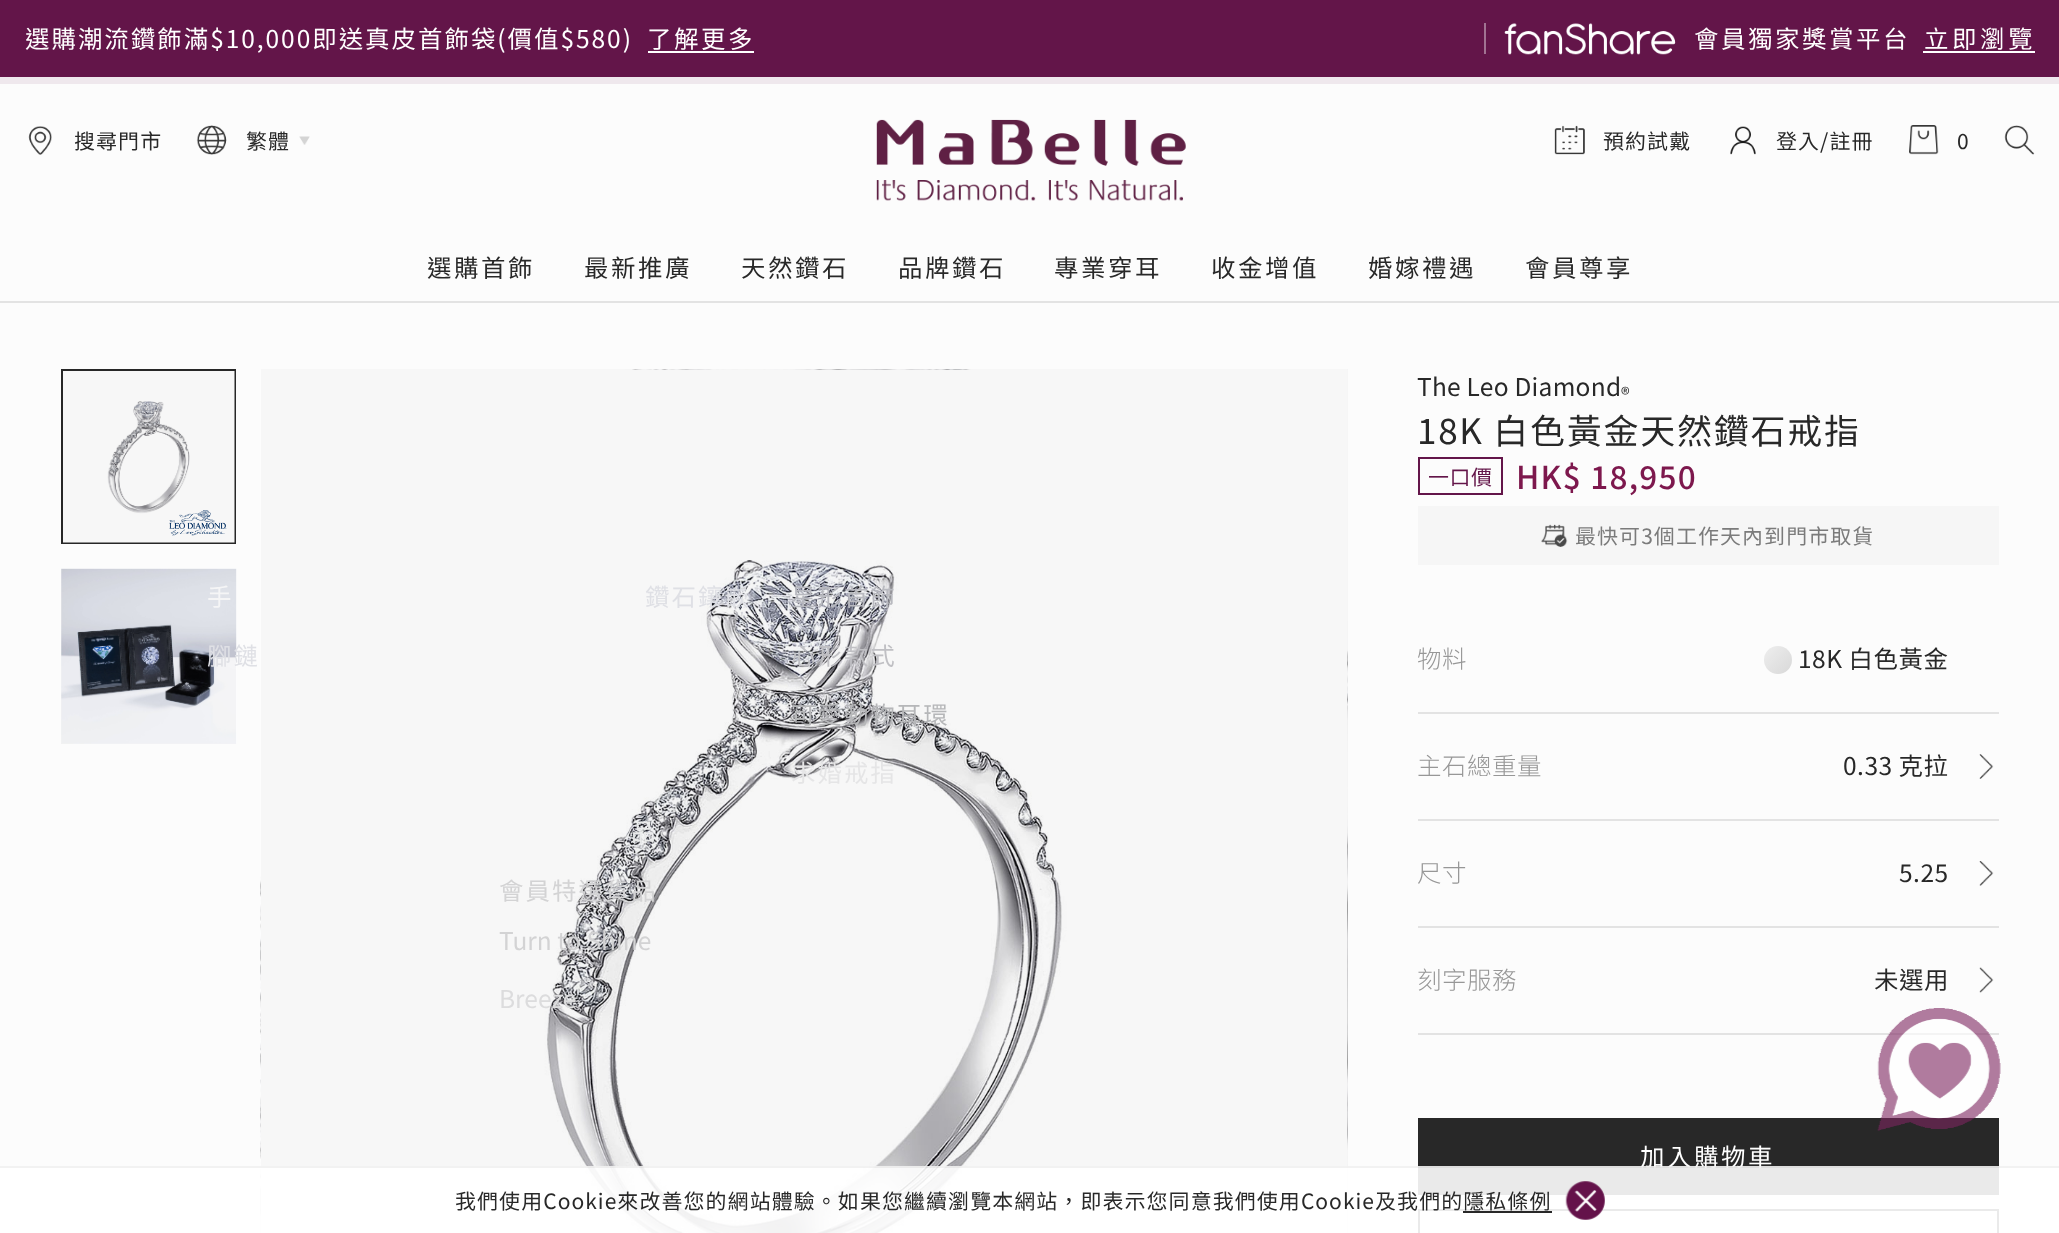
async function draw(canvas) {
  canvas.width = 2059
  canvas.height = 1233
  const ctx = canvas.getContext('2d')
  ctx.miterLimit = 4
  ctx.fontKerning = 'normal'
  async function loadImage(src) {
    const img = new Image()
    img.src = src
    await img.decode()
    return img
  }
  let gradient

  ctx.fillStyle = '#fcfcfc'
  ctx.fillRect(0, 0, 2059, 1233)
  ctx.fillStyle = '#f4f4f4'
  ctx.fillRect(261, 369, 1087, 864)
  ctx.fillRect(61, 569, 175, 175)
  ctx.fillStyle = '#631549'
  ctx.fillRect(0, 0, 2059, 77)
  ctx.letterSpacing = '1.95px'
  ctx.font = '24.5px Noto Sans TC'
  ctx.fillStyle = '#fff'
  ctx.fillText('選購潮流鑽飾滿$10,000即送真皮首飾袋(價值$580)', 25, 48)
  ctx.letterSpacing = '2.5px'
  ctx.fillText('了解更多', 647, 48)
  ctx.fillRect(648, 51, 106, 2)
  ctx.fillStyle = '#a17392'
  ctx.fillRect(1484, 23, 2, 31)
  ctx.drawImage(await loadImage('image0.png'), 1504, 23, 172, 32)
  ctx.fillStyle = '#fff'
  ctx.fillText('會員獨家獎賞平台', 1694, 48)
  ctx.letterSpacing = '3.5px'
  ctx.fillText('立即瀏覽', 1924, 48)
  ctx.fillRect(1923, 51, 112, 2)
  ctx.fillStyle = '#efe8ed'
  ctx.fillRect(0, 77, 2059, 7)
  ctx.drawImage(await loadImage('image1.png'), 28, 126, 24, 29)
  ctx.letterSpacing = '1.05px'
  ctx.font = '21px Noto Sans TC'
  ctx.fillStyle = '#282828'
  ctx.fillText('搜尋門市', 74, 149)
  ctx.drawImage(await loadImage('image2.png'), 196, 125, 31, 30)
  ctx.fillText('繁體', 246, 149)
  ctx.drawImage(await loadImage('image3.png'), 299, 136, 11, 9)
  ctx.drawImage(await loadImage('image4.png'), 876, 119, 310, 82)
  ctx.drawImage(await loadImage('image5.png'), 1554, 125, 31, 30)
  ctx.fillText('預約試戴', 1603, 149)
  ctx.drawImage(await loadImage('image6.png'), 1730, 126, 26, 29)
  ctx.fillText('登入/註冊', 1776, 149)
  ctx.drawImage(await loadImage('image7.png'), 1909, 125, 30, 30)
  ctx.letterSpacing = '0px'
  ctx.fillText('0', 1957, 149)
  ctx.drawImage(await loadImage('image8.png'), 2004, 125, 31, 30)
  ctx.letterSpacing = '2.5px'
  ctx.font = '24.5px Noto Sans TC'
  ctx.fillText('選購首飾', 427, 277)
  ctx.drawImage(await loadImage('image11.png'), 61, 568, 176, 176)
  ctx.letterSpacing = '1.95px'
  ctx.fillStyle = '#f5f5f6'
  ctx.fillText('手', 207, 606)
  ctx.fillStyle = '#dfe0e5'
  ctx.fillText('腳鏈', 207, 665)
  ctx.drawImage(await loadImage('image12.png'), 260, 369, 1088, 864)
  ctx.drawImage(await loadImage('image13.png'), 260, 369, 1088, 864)
  ctx.fillStyle = '#b8b9bf'
  ctx.fillText('星形首飾', 791, 606)
  ctx.fillStyle = '#c0c0c4'
  ctx.fillText('心形款式', 791, 665)
  ctx.fillStyle = '#b6b7b9'
  ctx.fillText('可愛動物耳環', 791, 724)
  ctx.fillStyle = '#e5e5e6'
  ctx.fillText('求婚戒指', 791, 782)
  ctx.fillStyle = '#eaebeb'
  ctx.fillText('品', 631, 841)
  ctx.fillStyle = '#d3d3d4'
  ctx.fillText('會員特選貨品', 499, 900)
  ctx.letterSpacing = '2.5px'
  ctx.fillStyle = '#282828'
  ctx.fillText('品牌鑽石', 898, 277)
  ctx.letterSpacing = '0px'
  ctx.fillStyle = '#d3d3d4'
  ctx.fillText('Turn to Shine', 499, 950)
  ctx.fillStyle = '#dcdcdd'
  ctx.fillText('Breeze', 499, 1008)
  ctx.letterSpacing = '2.5px'
  ctx.fillStyle = '#282828'
  ctx.fillText('最新推廣', 584, 277)
  ctx.fillText('天然鑽石', 741, 277)
  ctx.letterSpacing = '1.95px'
  ctx.fillStyle = '#dfe0e5'
  ctx.fillText('鑽石鑲嵌', 645, 606)
  ctx.letterSpacing = '2.5px'
  ctx.fillStyle = '#282828'
  ctx.fillText('專業穿耳', 1054, 277)
  ctx.fillText('收金增值', 1211, 277)
  ctx.fillText('婚嫁禮遇', 1368, 277)
  ctx.fillText('會員尊享', 1525, 277)
  ctx.fillStyle = '#e3e3e3'
  ctx.fillRect(0, 301, 2059, 2)
  ctx.strokeStyle = '#272727'
  ctx.lineWidth = 2
  ctx.strokeRect(62, 370, 173, 173)
  ctx.drawImage(await loadImage('image9.png'), 63, 371, 172, 172)
  ctx.drawImage(await loadImage('image10.png'), 169, 510, 58, 26)
  ctx.letterSpacing = '0.25px'
  ctx.fillStyle = '#282828'
  ctx.fillText('The Leo Diamond', 1417, 396)
  ctx.font = '18px Noto Sans TC'
  ctx.fillText('®', 1621, 401)
  ctx.letterSpacing = '1.75px'
  ctx.font = '35px Noto Sans TC'
  ctx.fillText('18K 白色黃金天然鑽石戒指', 1417, 444)
  ctx.strokeStyle = '#631549'
  ctx.strokeRect(1419, 458, 83, 36)
  ctx.letterSpacing = '0.5px'
  ctx.font = '21px Noto Sans TC'
  ctx.fillStyle = '#631549'
  ctx.fillText('一口價', 1428, 485)
  ctx.letterSpacing = '1.25px'
  ctx.font = '500 31.5px Noto Sans TC'
  ctx.fillStyle = '#7d184d'
  ctx.fillText('HK$ 18,950', 1516, 489)
  ctx.fillStyle = '#f6f6f6'
  ctx.fillRect(1418, 506, 581, 59)
  ctx.drawImage(await loadImage('image14.png'), 1541, 524, 27, 23)
  ctx.letterSpacing = '1.05px'
  ctx.font = '21px Noto Sans TC'
  ctx.fillStyle = '#7b7b7b'
  ctx.fillText('最快可3個工作天內到門市取貨', 1575, 544)
  ctx.fillStyle = '#e3e3e3'
  ctx.fillRect(1418, 712, 581, 2)
  ctx.letterSpacing = '0.5px'
  ctx.font = '300 24.5px Noto Sans TC'
  ctx.fillStyle = '#979797'
  ctx.fillText('物料', 1417, 668)
  gradient = ctx.createLinearGradient(1764, 646, 1792, 674)
  gradient.addColorStop(0, '#eee')
  gradient.addColorStop(1, '#d8d8d8')
  ctx.fillStyle = gradient
  ctx.beginPath()
  ctx.arc(1778, 660, 14, 0, 2 * Math.PI)
  ctx.fill()
  ctx.font = '24.5px Noto Sans TC'
  ctx.fillStyle = '#282828'
  ctx.fillText('18K 白色黃金', 1798, 668)
  ctx.fillStyle = '#e3e3e3'
  ctx.fillRect(1418, 819, 581, 2)
  ctx.font = '300 24.5px Noto Sans TC'
  ctx.fillStyle = '#979797'
  ctx.fillText('主石總重量', 1417, 775)
  ctx.font = '24.5px Noto Sans TC'
  ctx.fillStyle = '#282828'
  ctx.fillText('0.33 克拉', 1843, 775)
  ctx.drawImage(await loadImage('image15.png'), 1979, 754, 15, 25)
  ctx.fillStyle = '#e3e3e3'
  ctx.fillRect(1418, 926, 581, 2)
  ctx.font = '300 24.5px Noto Sans TC'
  ctx.fillStyle = '#979797'
  ctx.fillText('尺寸', 1417, 882)
  ctx.font = '24.5px Noto Sans TC'
  ctx.fillStyle = '#282828'
  ctx.fillText('5.25', 1899, 882)
  ctx.drawImage(await loadImage('image16.png'), 1979, 861, 15, 25)
  ctx.fillStyle = '#e3e3e3'
  ctx.fillRect(1418, 1033, 581, 2)
  ctx.font = '300 24.5px Noto Sans TC'
  ctx.fillStyle = '#979797'
  ctx.fillText('刻字服務', 1417, 989)
  ctx.font = '24.5px Noto Sans TC'
  ctx.fillStyle = '#282828'
  ctx.fillText('未選用', 1874, 989)
  ctx.drawImage(await loadImage('image17.png'), 1979, 967, 15, 26)
  ctx.fillRect(1418, 1118, 581, 77)
  ctx.letterSpacing = '2.5px'
  ctx.fillStyle = '#fff'
  ctx.fillText('加入購物車', 1640, 1166)
  ctx.strokeStyle = '#282828'
  ctx.strokeRect(1419, 1210, 579, 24)
  ctx.drawImage(await loadImage('image18.png'), 1877, 1008, 124, 123)
  ctx.fillStyle = '#ffffffe6'
  ctx.fillRect(0, 1166, 2059, 67)
  ctx.fillStyle = '#0000000d'
  ctx.fillRect(0, 1166, 2059, 2)
  ctx.letterSpacing = '1.05px'
  ctx.font = '21px Noto Sans TC'
  ctx.fillStyle = '#282828'
  ctx.fillText('我們使用Cookie來改善您的網站體驗。如果您繼續瀏覽本網站，即表示您同意我們使用Cookie及我們的隱私條例', 455, 1209)
  ctx.fillRect(1463, 1211, 89, 2)
  ctx.drawImage(await loadImage('image19.png'), 1565, 1181, 40, 39)
}

draw(document.querySelector('canvas'))
